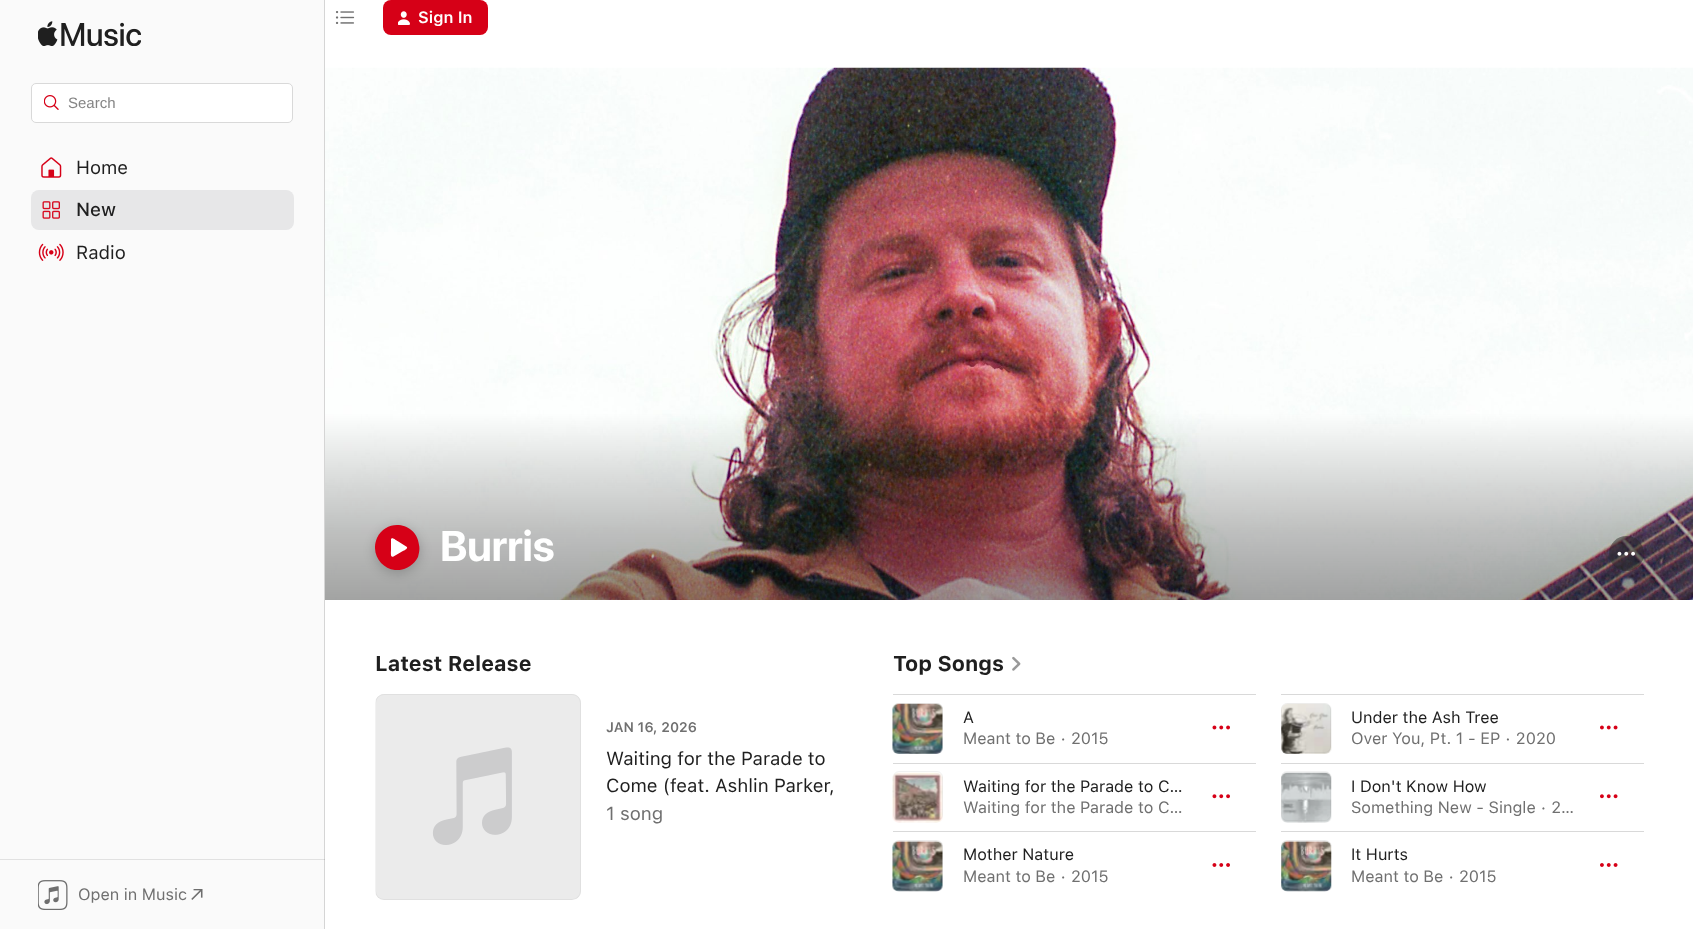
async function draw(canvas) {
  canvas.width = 1693
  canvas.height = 929
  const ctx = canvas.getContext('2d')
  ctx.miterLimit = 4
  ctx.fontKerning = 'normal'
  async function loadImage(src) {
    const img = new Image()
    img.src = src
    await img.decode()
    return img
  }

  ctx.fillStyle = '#fff'
  ctx.fillRect(0, 0, 1693, 929)
  ctx.drawImage(await loadImage('image0.png'), 335, 11, 20, 13)
  ctx.fillStyle = '#d60017'
  ctx.beginPath()
  ctx.roundRect(383, 0, 105, 35, 8)
  ctx.fill()
  ctx.drawImage(await loadImage('image1.png'), 398, 11, 12, 14)
  ctx.font = '600 16.25px SF'
  ctx.fillStyle = '#fff'
  ctx.fillText('Sign In', 418, 23)
  ctx.fillStyle = '#fafafa'
  ctx.fillRect(0, 0, 324, 929)
  ctx.fillStyle = '#e1e1e1'
  ctx.fillRect(0, 859, 325, 1)
  ctx.fillStyle = '#d5d5d5'
  ctx.fillRect(324, 0, 1, 929)
  ctx.fillStyle = '#c0c0c0'
  ctx.fillRect(324, 859, 1, 1)
  ctx.drawImage(await loadImage('image2.png'), 38, 21, 103, 25)
  ctx.fillStyle = '#fff'
  ctx.beginPath()
  ctx.roundRect(31.5, 83.5, 261, 39, 4.5)
  ctx.fill()
  ctx.strokeStyle = '#d9d9d9'
  ctx.stroke()
  ctx.drawImage(await loadImage('image3.png'), 44, 95, 15, 15)
  ctx.font = '15px Liberation Sans'
  ctx.fillStyle = '#858585'
  ctx.fillText('Search', 68, 108)
  ctx.drawImage(await loadImage('image4.png'), 41, 157, 21, 21)
  ctx.font = '18.75px SF'
  ctx.fillStyle = '#1f1f1f'
  ctx.fillText('Home', 76, 174)
  ctx.fillStyle = '#e7e7e8'
  ctx.beginPath()
  ctx.roundRect(31, 190, 263, 40, 8)
  ctx.fill()
  ctx.drawImage(await loadImage('image5.png'), 42, 201, 18, 18)
  ctx.font = '500 18.75px SF'
  ctx.fillStyle = '#1f1f1f'
  ctx.fillText('New', 76, 216)
  ctx.drawImage(await loadImage('image6.png'), 38, 243, 26, 18)
  ctx.font = '18.75px SF'
  ctx.fillText('Radio', 76, 259)
  ctx.drawImage(await loadImage('image7.png'), 38, 880, 30, 30)
  ctx.font = '16.25px SF'
  ctx.fillStyle = '#707070'
  ctx.fillText('Open in Music', 78, 900)
  ctx.drawImage(await loadImage('image8.png'), 191, 889, 12, 11)
  ctx.drawImage(await loadImage('image9.png'), 325, 67, 1368, 533)
  ctx.fillStyle = '#00000033'
  ctx.filter = 'blur(6px)'
  ctx.beginPath()
  ctx.roundRect(375, 528, 45, 45, 22.5)
  ctx.fill()
  ctx.filter = 'none'
  ctx.save()
  ctx.beginPath()
  ctx.rect(375, 525, 45, 45)
  ctx.clip()
  ctx.fillStyle = '#d60017'
  ctx.beginPath()
  ctx.moveTo(377, 538)
  ctx.bezierCurveTo(387, 517, 417, 523, 419, 545)
  ctx.bezierCurveTo(420, 549, 419, 553, 418, 557)
  ctx.bezierCurveTo(416, 561, 413, 564, 410, 566)
  ctx.bezierCurveTo(391, 579, 368, 559, 377, 538)
  ctx.closePath()
  ctx.fill()
  ctx.restore()
  ctx.fillStyle = '#fff'
  ctx.beginPath()
  ctx.moveTo(393.5, 556.5)
  ctx.bezierCurveTo(390, 558.5, 391, 551, 391, 550)
  ctx.lineTo(391, 539)
  ctx.bezierCurveTo(392, 536.5, 397, 541, 397.5, 541)
  ctx.lineTo(407, 547)
  ctx.bezierCurveTo(408, 549, 403, 551, 402, 551.5)
  ctx.closePath()
  ctx.fill()
  ctx.font = 'bold 42.5px "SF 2"'
  ctx.fillText('Burris', 440, 561)
  ctx.fillStyle = '#28282880'
  ctx.beginPath()
  ctx.arc(1626.5, 553.5, 17.5, 0, 2 * Math.PI)
  ctx.fill()
  ctx.drawImage(await loadImage('image10.png'), 1617, 551, 18, 5)
  ctx.font = 'bold 21.25px SF'
  ctx.fillStyle = '#1f1f1f'
  ctx.fillText('Latest Release', 375, 671)
  ctx.save()
  ctx.beginPath()
  ctx.roundRect(375, 694, 206, 206, 9)
  ctx.clip()
  ctx.fillStyle = '#ebebeb'
  ctx.beginPath()
  ctx.roundRect(376, 694, 205, 206, [0, 9, 9, 0])
  ctx.fill()
  ctx.restore()
  ctx.drawImage(await loadImage('image11.png'), 381, 694, 200, 205)
  ctx.beginPath()
  ctx.roundRect(375.5, 694.5, 205, 205, 8.5)
  ctx.strokeStyle = '#8080801a'
  ctx.stroke()
  ctx.font = '600 13.75px SF'
  ctx.fillStyle = '#707070'
  ctx.fillText('JAN 16, 2026', 606, 732)
  ctx.font = '18.75px SF'
  ctx.fillStyle = '#1f1f1f'
  ctx.fillText('Waiting for the Parade to', 606, 765)
  ctx.fillText('Come (feat. Ashlin Parker,', 606, 792)
  ctx.fillStyle = '#707070'
  ctx.fillText('1 song', 606, 820)
  ctx.font = 'bold 21.25px SF'
  ctx.fillStyle = '#1f1f1f'
  ctx.fillText('Top Songs', 893, 671)
  ctx.drawImage(await loadImage('image12.png'), 1012, 656, 9, 15)
  ctx.fillStyle = '#d9d9d9'
  ctx.fillRect(893, 694, 363, 1)
  ctx.drawImage(await loadImage('image13.png'), 892, 703, 51, 51)
  ctx.beginPath()
  ctx.roundRect(893.5, 703.5, 49, 49, 5.5)
  ctx.stroke()
  ctx.font = '16.25px SF'
  ctx.fillStyle = '#1f1f1f'
  ctx.fillText('A', 963, 723)
  ctx.fillStyle = '#707070'
  ctx.fillText('Meant to Be · 2015', 963, 744)
  ctx.drawImage(await loadImage('image14.png'), 1212, 725, 18, 5)
  ctx.fillStyle = '#d9d9d9'
  ctx.fillRect(1281, 694, 363, 1)
  ctx.drawImage(await loadImage('image15.png'), 1281, 703, 51, 51)
  ctx.beginPath()
  ctx.roundRect(1281.5, 703.5, 49, 49, 5.5)
  ctx.stroke()
  ctx.fillStyle = '#1f1f1f'
  ctx.fillText('Under the Ash Tree', 1351, 723)
  ctx.fillStyle = '#707070'
  ctx.fillText('Over You, Pt. 1 - EP · 2020', 1351, 744)
  ctx.drawImage(await loadImage('image16.png'), 1600, 725, 18, 5)
  ctx.fillStyle = '#d9d9d9'
  ctx.fillRect(893, 763, 363, 1)
  ctx.drawImage(await loadImage('image17.png'), 892, 772, 51, 51)
  ctx.beginPath()
  ctx.roundRect(893.5, 771.5, 49, 49, 5.5)
  ctx.stroke()
  ctx.fillStyle = '#1f1f1f'
  ctx.fillText('Waiting for the Parade to C…', 963, 792)
  ctx.fillStyle = '#707070'
  ctx.fillText('Waiting for the Parade to C…', 963, 813)
  ctx.drawImage(await loadImage('image18.png'), 1212, 794, 18, 5)
  ctx.fillStyle = '#d9d9d9'
  ctx.fillRect(1281, 763, 363, 1)
  ctx.drawImage(await loadImage('image19.png'), 1281, 772, 51, 51)
  ctx.beginPath()
  ctx.roundRect(1281.5, 771.5, 49, 49, 5.5)
  ctx.stroke()
  ctx.fillStyle = '#1f1f1f'
  ctx.fillText('I Don\'t Know How', 1351, 792)
  ctx.fillStyle = '#707070'
  ctx.fillText('Something New - Single · 2…', 1351, 813)
  ctx.drawImage(await loadImage('image20.png'), 1600, 794, 18, 5)
  ctx.fillStyle = '#d9d9d9'
  ctx.fillRect(893, 831, 363, 1)
  ctx.drawImage(await loadImage('image21.png'), 892, 840, 51, 52)
  ctx.beginPath()
  ctx.roundRect(893.5, 840.5, 49, 49, 5.5)
  ctx.stroke()
  ctx.fillStyle = '#1f1f1f'
  ctx.fillText('Mother Nature', 963, 860)
  ctx.fillStyle = '#707070'
  ctx.fillText('Meant to Be · 2015', 963, 882)
  ctx.drawImage(await loadImage('image22.png'), 1212, 863, 18, 4)
  ctx.fillStyle = '#d9d9d9'
  ctx.fillRect(1281, 831, 363, 1)
  ctx.drawImage(await loadImage('image23.png'), 1281, 840, 51, 52)
  ctx.beginPath()
  ctx.roundRect(1281.5, 840.5, 49, 49, 5.5)
  ctx.stroke()
  ctx.fillStyle = '#1f1f1f'
  ctx.fillText('It Hurts', 1351, 860)
  ctx.fillStyle = '#707070'
  ctx.fillText('Meant to Be · 2015', 1351, 882)
  ctx.drawImage(await loadImage('image24.png'), 1600, 863, 18, 4)
}

draw(document.querySelector('canvas'))
